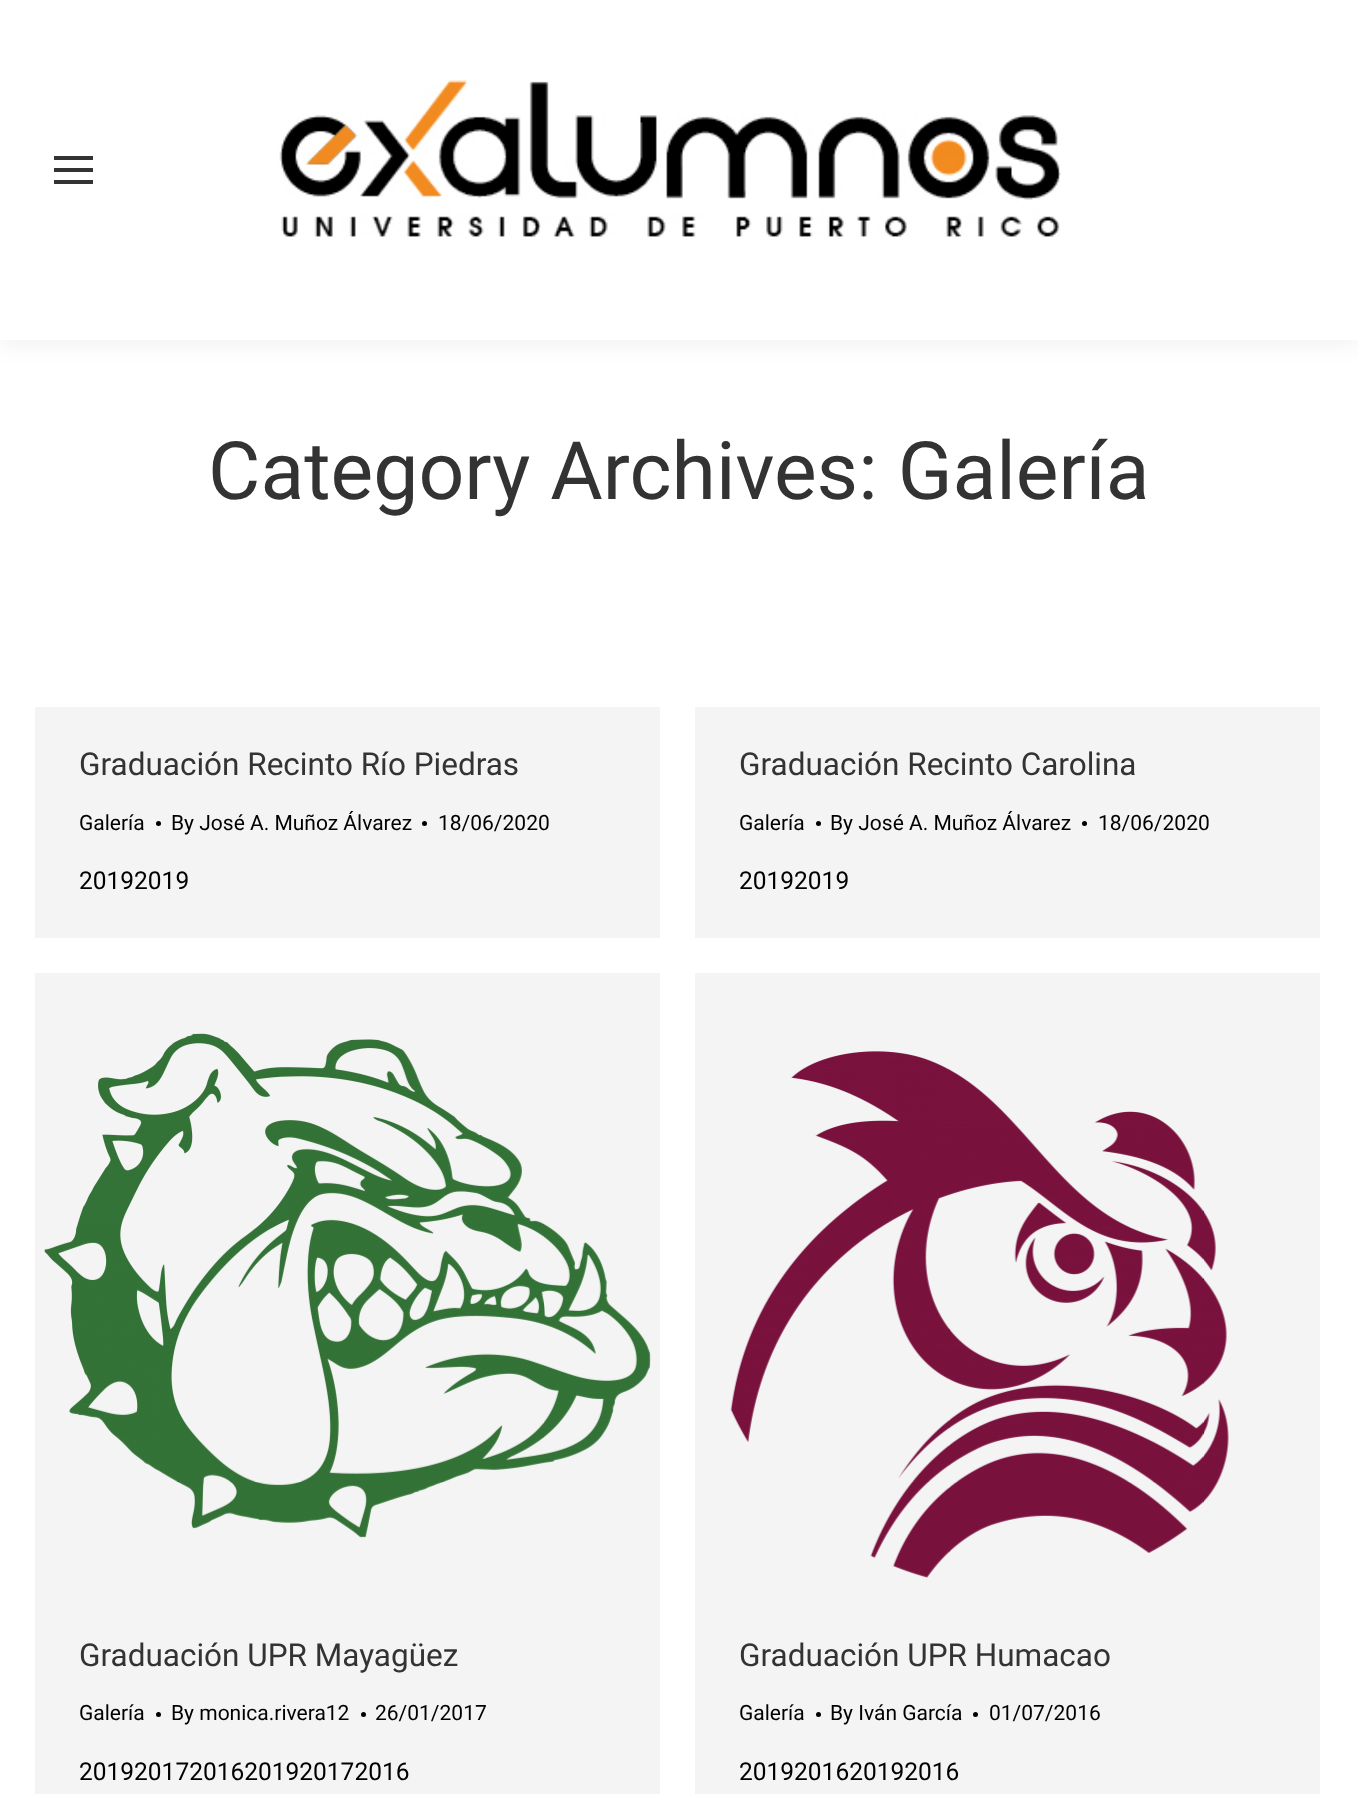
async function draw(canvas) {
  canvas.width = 1358
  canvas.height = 1794
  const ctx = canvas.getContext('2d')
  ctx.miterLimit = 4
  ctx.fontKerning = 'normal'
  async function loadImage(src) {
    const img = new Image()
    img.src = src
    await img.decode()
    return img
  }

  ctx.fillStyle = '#fff'
  ctx.fillRect(0, 0, 1358, 1794)
  ctx.fillStyle = '#00000012'
  ctx.filter = 'blur(13px)'
  ctx.beginPath()
  ctx.rect(-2, -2, 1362, 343)
  ctx.fill()
  ctx.filter = 'none'
  ctx.fillStyle = '#fff'
  ctx.fillRect(0, 0, 1358, 340)
  ctx.fillStyle = '#333'
  ctx.fillRect(54, 156, 39, 4)
  ctx.fillRect(54, 168, 39, 4)
  ctx.fillRect(54, 180, 39, 4)
  ctx.drawImage(await loadImage('image0.png'), 279, 80, 782, 157)
  ctx.font = '80.5px Roboto'
  ctx.fillText('Category Archives: Galería', 208, 499)
  ctx.fillStyle = '#f4f4f4'
  ctx.fillRect(35, 707, 625, 231)
  ctx.font = '31.5px Roboto'
  ctx.fillStyle = '#333'
  ctx.fillText('Graduación Recinto Río Piedras', 79, 775)
  ctx.font = '21px Roboto'
  ctx.fillStyle = '#000'
  ctx.fillText('Galería', 79, 830)
  ctx.beginPath()
  ctx.arc(158.5, 823.5, 2.5, 0, 2 * Math.PI)
  ctx.fill()
  ctx.fillText('By José A. Muñoz Álvarez', 171, 830)
  ctx.beginPath()
  ctx.arc(424.5, 823.5, 2.5, 0, 2 * Math.PI)
  ctx.fill()
  ctx.fillText('18/06/2020', 438, 830)
  ctx.font = '24.5px Roboto'
  ctx.fillText('20192019', 79, 889)
  ctx.fillStyle = '#f4f4f4'
  ctx.fillRect(695, 707, 625, 231)
  ctx.font = '31.5px Roboto'
  ctx.fillStyle = '#333'
  ctx.fillText('Graduación Recinto Carolina', 739, 775)
  ctx.font = '21px Roboto'
  ctx.fillStyle = '#000'
  ctx.fillText('Galería', 739, 830)
  ctx.beginPath()
  ctx.arc(818.5, 823.5, 2.5, 0, 2 * Math.PI)
  ctx.fill()
  ctx.fillText('By José A. Muñoz Álvarez', 830, 830)
  ctx.beginPath()
  ctx.arc(1084.5, 823.5, 2.5, 0, 2 * Math.PI)
  ctx.fill()
  ctx.fillText('18/06/2020', 1098, 830)
  ctx.font = '24.5px Roboto'
  ctx.fillText('20192019', 739, 889)
  ctx.fillStyle = '#f4f4f4'
  ctx.fillRect(35, 973, 625, 821)
  ctx.drawImage(await loadImage('image1.png'), 44, 1033, 607, 505)
  ctx.font = '31.5px Roboto'
  ctx.fillStyle = '#333'
  ctx.fillText('Graduación UPR Mayagüez', 79, 1666)
  ctx.font = '21px Roboto'
  ctx.fillStyle = '#000'
  ctx.fillText('Galería', 79, 1720)
  ctx.beginPath()
  ctx.arc(158.5, 1714.5, 2.5, 0, 2 * Math.PI)
  ctx.fill()
  ctx.fillText('By monica.rivera12', 171, 1720)
  ctx.beginPath()
  ctx.arc(363.5, 1714.5, 2.5, 0, 2 * Math.PI)
  ctx.fill()
  ctx.fillText('26/01/2017', 375, 1720)
  ctx.font = '24.5px Roboto'
  ctx.fillText('201920172016201920172016', 79, 1780)
  ctx.fillStyle = '#f4f4f4'
  ctx.fillRect(695, 973, 625, 821)
  ctx.drawImage(await loadImage('image2.png'), 730, 1051, 499, 527)
  ctx.font = '31.5px Roboto'
  ctx.fillStyle = '#333'
  ctx.fillText('Graduación UPR Humacao', 739, 1666)
  ctx.font = '21px Roboto'
  ctx.fillStyle = '#000'
  ctx.fillText('Galería', 739, 1720)
  ctx.beginPath()
  ctx.arc(818.5, 1714.5, 2.5, 0, 2 * Math.PI)
  ctx.fill()
  ctx.fillText('By Iván García', 830, 1720)
  ctx.beginPath()
  ctx.arc(975.5, 1714.5, 2.5, 0, 2 * Math.PI)
  ctx.fill()
  ctx.fillText('01/07/2016', 989, 1720)
  ctx.font = '24.5px Roboto'
  ctx.fillText('2019201620192016', 739, 1780)
}

draw(document.querySelector('canvas'))
